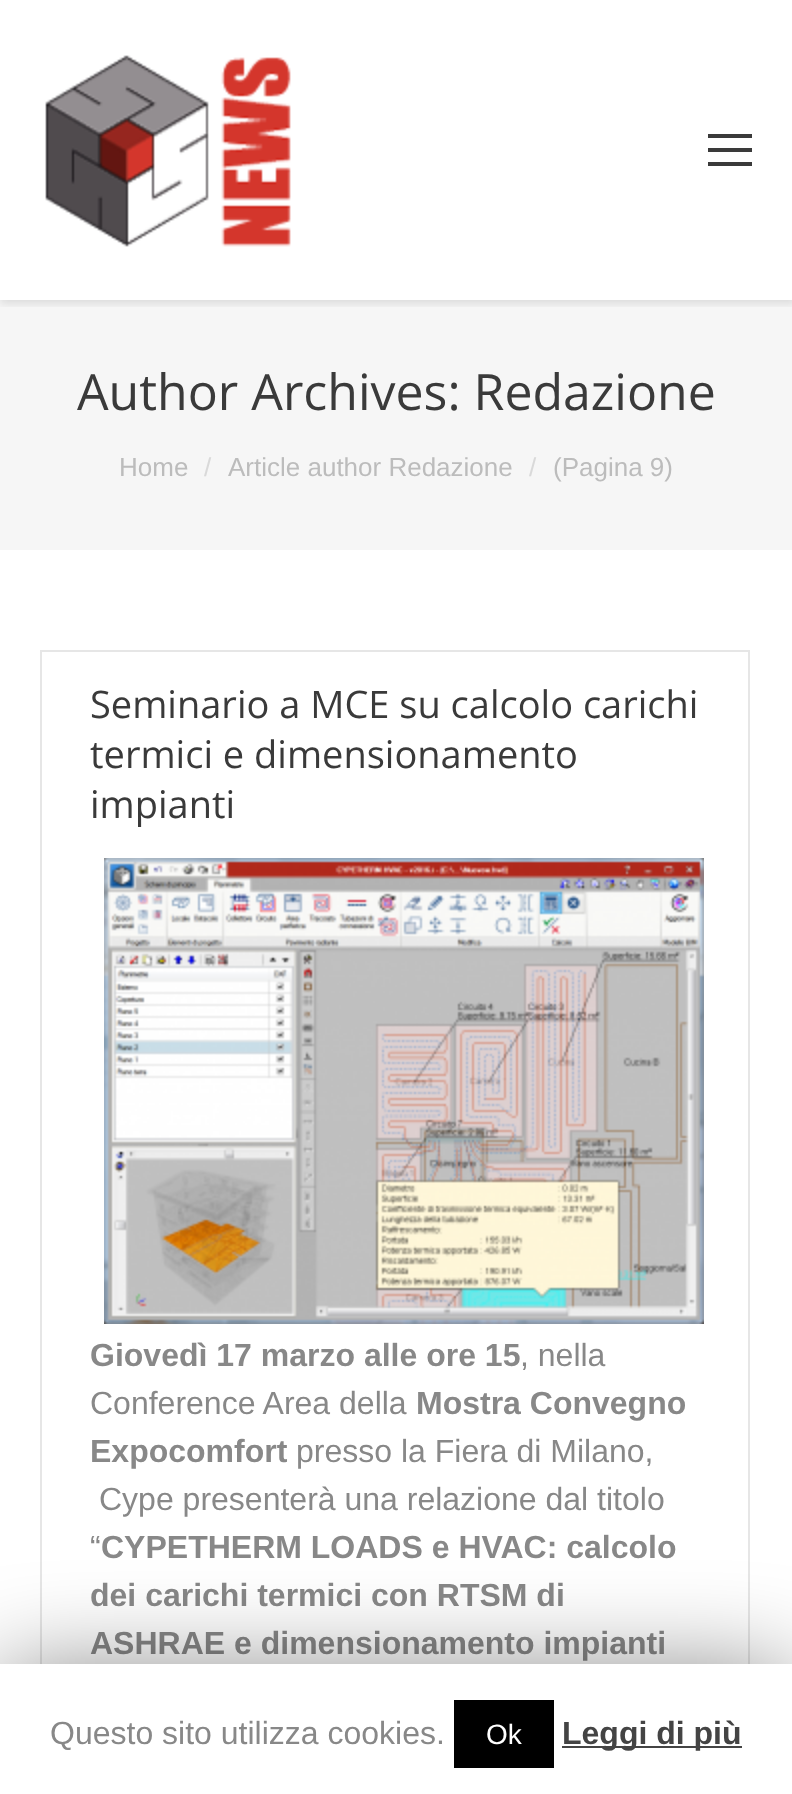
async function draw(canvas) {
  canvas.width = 792
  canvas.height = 1794
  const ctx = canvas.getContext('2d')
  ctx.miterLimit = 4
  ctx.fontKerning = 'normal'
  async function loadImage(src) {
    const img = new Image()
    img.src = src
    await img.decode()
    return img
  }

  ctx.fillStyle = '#fff'
  ctx.fillRect(0, 0, 792, 1794)
  ctx.fillStyle = '#f6f6f6'
  ctx.fillRect(0, 300, 792, 250)
  ctx.save()
  ctx.beginPath()
  ctx.rect(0, 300, 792, 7)
  ctx.clip()
  ctx.fillStyle = '#0000001a'
  ctx.filter = 'blur(4px)'
  ctx.beginPath()
  ctx.rect(0, 0, 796, 304)
  ctx.fill()
  ctx.filter = 'none'
  ctx.restore()
  ctx.drawImage(await loadImage('image0.png'), 45, 55, 246, 192)
  ctx.fillStyle = '#3a3a3a'
  ctx.fillRect(708, 148, 44, 4)
  ctx.fillRect(708, 134, 44, 4)
  ctx.fillRect(708, 162, 44, 4)
  ctx.font = '50px Open Sans'
  ctx.fillText('Author Archives: Redazione', 77, 410)
  ctx.font = '26px Liberation Sans'
  ctx.fillStyle = '#bcbcbc'
  ctx.fillText('Home', 119, 476)
  ctx.fillStyle = '#d9d9d9'
  ctx.fillText('/', 204, 476)
  ctx.fillStyle = '#bcbcbc'
  ctx.fillText('Article author Redazione', 228, 476)
  ctx.fillStyle = '#d9d9d9'
  ctx.fillText('/', 529, 476)
  ctx.fillStyle = '#bcbcbc'
  ctx.fillText('(Pagina 9)', 553, 476)
  ctx.strokeStyle = '#e6e6e6'
  ctx.lineWidth = 2
  ctx.strokeRect(41, 651, 708, 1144)
  ctx.font = '38px Open Sans'
  ctx.fillStyle = '#3a3a3a'
  ctx.fillText('Seminario a MCE su calcolo carichi', 90, 718)
  ctx.fillText('termici e dimensionamento', 90, 768)
  ctx.fillText('impianti', 90, 818)
  ctx.drawImage(await loadImage('image1.png'), 104, 858, 600, 466)
  ctx.font = 'bold 32px Liberation Sans'
  ctx.fillStyle = '#888'
  ctx.fillText('Giovedì 17 marzo alle ore 15', 90, 1366)
  ctx.font = '32px Liberation Sans'
  ctx.fillText(', nella', 520, 1366)
  ctx.fillText('Conference Area della', 90, 1414)
  ctx.font = 'bold 32px Liberation Sans'
  ctx.fillText('Mostra Convegno', 416, 1414)
  ctx.fillText('Expocomfort', 90, 1462)
  ctx.font = '32px Liberation Sans'
  ctx.fillText('presso la Fiera di Milano,', 296, 1462)
  ctx.fillText('Cype presenterà una relazione dal titolo', 99, 1510)
  ctx.fillText('“', 90, 1558)
  ctx.font = 'bold 32px Liberation Sans'
  ctx.fillText('CYPETHERM LOADS e HVAC: calcolo', 101, 1558)
  ctx.fillText('dei carichi termici con RTSM di', 90, 1606)
  ctx.fillText('ASHRAE e dimensionamento impianti', 90, 1654)
  ctx.fillStyle = '#00000080'
  ctx.filter = 'blur(50px)'
  ctx.beginPath()
  ctx.rect(0, 1674, 792, 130)
  ctx.fill()
  ctx.filter = 'none'
  ctx.fillStyle = '#fff'
  ctx.fillRect(0, 1664, 792, 130)
  ctx.font = '32px Liberation Sans'
  ctx.fillStyle = '#888'
  ctx.fillText('Questo sito utilizza cookies.', 50, 1744)
  ctx.fillStyle = '#000'
  ctx.fillRect(454, 1700, 100, 68)
  ctx.font = '28px Liberation Sans'
  ctx.fillStyle = '#fff'
  ctx.fillText('Ok', 486, 1744)
  ctx.fillStyle = '#444'
  ctx.fillRect(562, 1746, 180, 2)
  ctx.font = 'bold 32px Liberation Sans'
  ctx.fillText('Leggi di più', 562, 1744)
}

draw(document.querySelector('canvas'))
